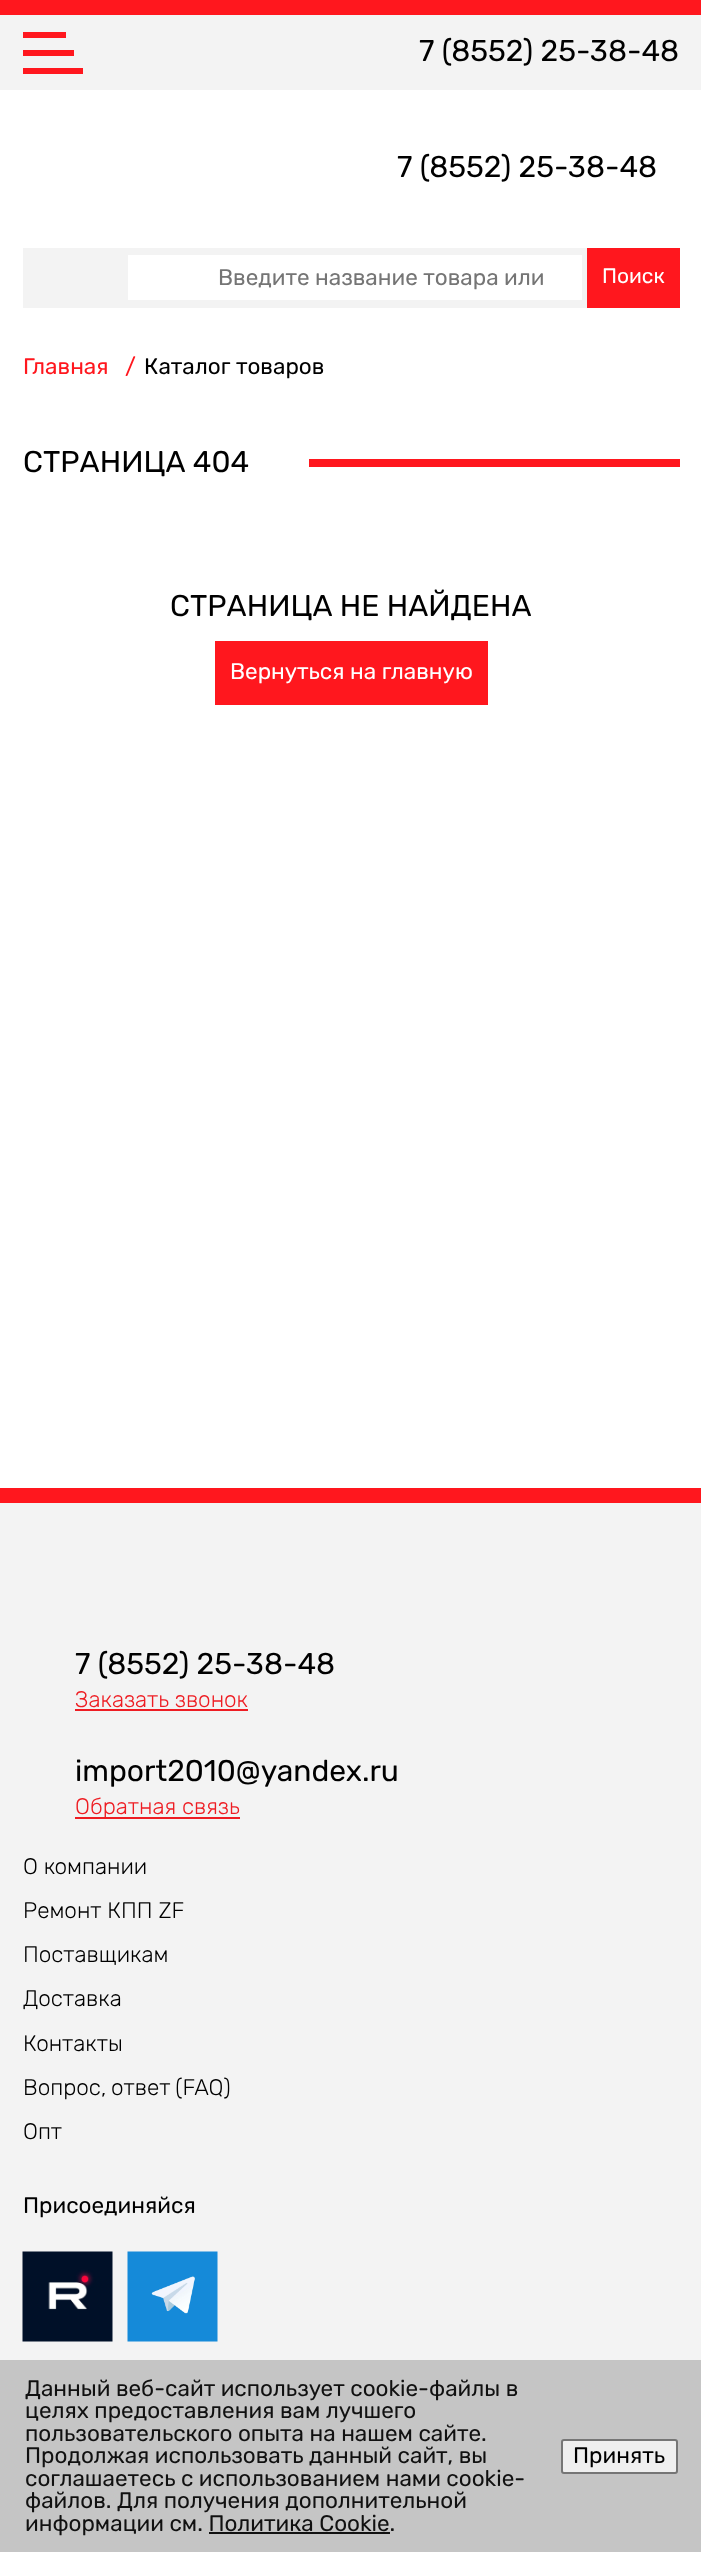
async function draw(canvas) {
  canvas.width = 701
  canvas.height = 2552
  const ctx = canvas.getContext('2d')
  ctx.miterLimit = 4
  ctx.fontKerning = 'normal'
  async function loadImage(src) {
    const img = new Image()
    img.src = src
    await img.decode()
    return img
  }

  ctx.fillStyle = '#fff'
  ctx.fillRect(0, 0, 701, 2552)
  ctx.fillStyle = '#f3f3f3'
  ctx.fillRect(0, 15, 701, 75)
  ctx.fillStyle = '#ff171e'
  ctx.fillRect(0, 0, 701, 15)
  ctx.fillRect(23, 32, 43, 6)
  ctx.fillRect(23, 50, 51, 6)
  ctx.fillRect(23, 68, 60, 6)
  ctx.font = '30px Rubik'
  ctx.fillStyle = '#000'
  ctx.fillText('7 (8552) 25-38-48', 419, 61)
  ctx.fillText('7 (8552) 25-38-48', 397, 177)
  ctx.fillStyle = '#f3f3f3'
  ctx.fillRect(23, 248, 564, 60)
  ctx.fillStyle = '#fff'
  ctx.fillRect(128, 255, 454, 45)
  ctx.font = '22.5px Rubik'
  ctx.fillStyle = '#757575'
  ctx.fillText('Введите название товара или', 218, 285)
  ctx.fillStyle = '#ff171e'
  ctx.fillRect(587, 248, 93, 60)
  ctx.font = '21px Rubik'
  ctx.fillStyle = '#fff'
  ctx.fillText('Поиск', 602, 283)
  ctx.font = '22.5px Rubik'
  ctx.fillStyle = '#ff171e'
  ctx.fillText('Главная', 23, 374)
  ctx.fillText('/', 125, 374)
  ctx.fillStyle = '#000'
  ctx.fillText('Каталог товаров', 144, 374)
  ctx.font = '30px Rubik'
  ctx.fillText('СТРАНИЦА 404', 23, 472)
  ctx.fillStyle = '#ff171e'
  ctx.fillRect(309, 459, 371, 8)
  ctx.fillStyle = '#000'
  ctx.fillText('СТРАНИЦА НЕ НАЙДЕНА', 170, 616)
  ctx.fillStyle = '#ff171e'
  ctx.fillRect(215, 641, 273, 64)
  ctx.font = '22.5px Rubik'
  ctx.fillStyle = '#fff'
  ctx.fillText('Вернуться на главную', 230, 679)
  ctx.fillStyle = '#f3f3f3'
  ctx.fillRect(0, 1503, 701, 857)
  ctx.fillStyle = '#ff171e'
  ctx.fillRect(0, 1488, 701, 15)
  ctx.font = '30px Rubik'
  ctx.fillStyle = '#000'
  ctx.fillText('7 (8552) 25-38-48', 75, 1674)
  ctx.font = '300 22.5px Rubik'
  ctx.fillStyle = '#ee1d23'
  ctx.fillText('Заказать звонок', 75, 1707)
  ctx.fillRect(75, 1709, 173, 2)
  ctx.font = '30px Rubik'
  ctx.fillStyle = '#000'
  ctx.fillText('import2010@yandex.ru', 75, 1781)
  ctx.fillStyle = '#ee1d23'
  ctx.fillRect(75, 1817, 165, 2)
  ctx.font = '300 22.5px Rubik'
  ctx.fillText('Обратная связь', 75, 1814)
  ctx.fillStyle = '#000'
  ctx.fillText('О компании', 23, 1874)
  ctx.fillText('Ремонт КПП ZF', 23, 1918)
  ctx.fillText('Поставщикам', 23, 1962)
  ctx.fillText('Доставка', 23, 2006)
  ctx.fillText('Контакты', 23, 2051)
  ctx.wordSpacing = '-1px'
  ctx.fillText('Вопрос, ответ (FAQ)', 23, 2095)
  ctx.wordSpacing = '0px'
  ctx.fillText('Опт', 23, 2139)
  ctx.font = '22.5px Rubik'
  ctx.fillText('Присоединяйся', 23, 2213)
  ctx.drawImage(await loadImage('image0.png'), 22, 2251, 91, 91)
  ctx.drawImage(await loadImage('image1.png'), 127, 2251, 91, 91)
  ctx.fillStyle = '#c5c5c5'
  ctx.fillRect(0, 2360, 701, 192)
  ctx.fillStyle = '#111'
  ctx.fillText('Данный веб-сайт использует cookie-файлы в', 25, 2396)
  ctx.fillText('целях предоставления вам лучшего', 25, 2418)
  ctx.fillText('пользовательского опыта на нашем сайте.', 25, 2441)
  ctx.fillText('Продолжая использовать данный сайт, вы', 25, 2463)
  ctx.fillText('соглашаетесь с использованием нами cookie-', 25, 2486)
  ctx.fillText('файлов. Для получения дополнительной', 25, 2508)
  ctx.fillText('информации см. Политика Cookie.', 25, 2531)
  ctx.fillRect(209, 2532, 181, 2)
  ctx.fillStyle = '#efefef'
  ctx.beginPath()
  ctx.roundRect(562, 2440, 115, 33, 2)
  ctx.fill()
  ctx.strokeStyle = '#767676'
  ctx.lineWidth = 2
  ctx.stroke()
  ctx.fillStyle = '#000'
  ctx.fillText('Принять', 573, 2463)
}

draw(document.querySelector('canvas'))
